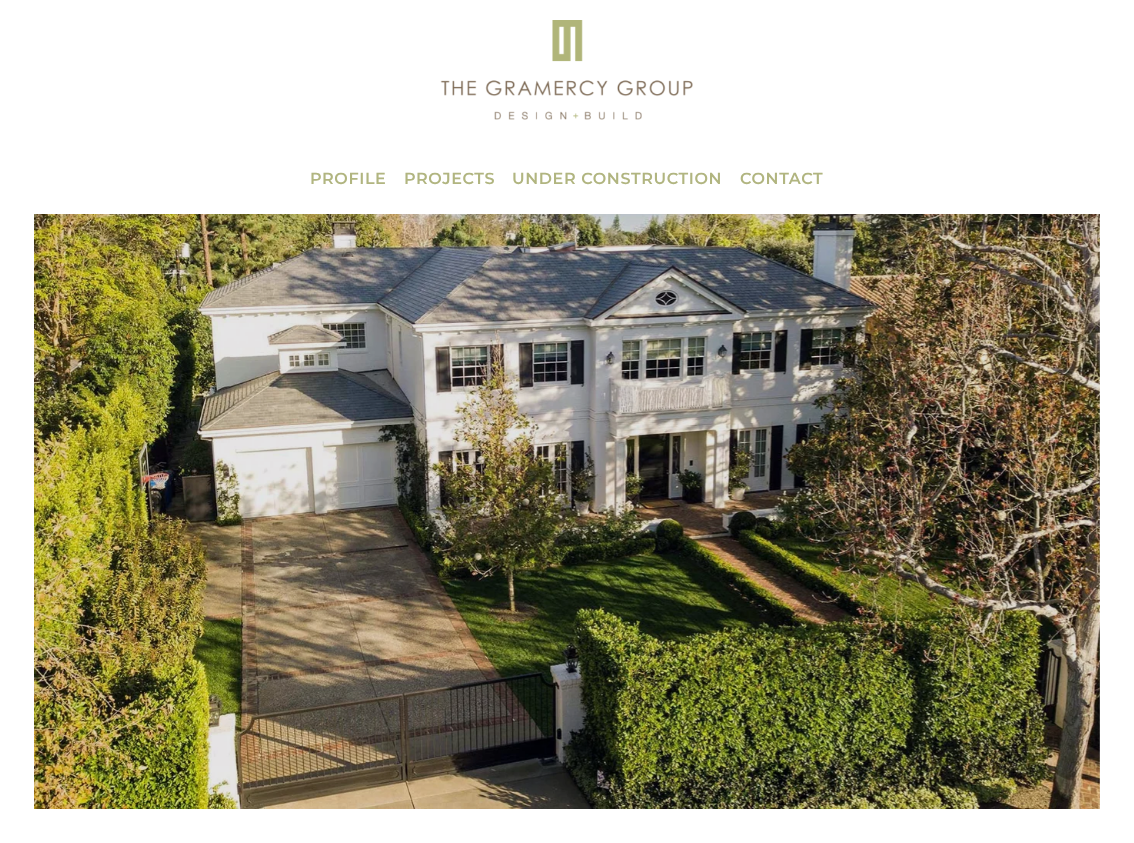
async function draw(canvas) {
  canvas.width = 1134
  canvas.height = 843
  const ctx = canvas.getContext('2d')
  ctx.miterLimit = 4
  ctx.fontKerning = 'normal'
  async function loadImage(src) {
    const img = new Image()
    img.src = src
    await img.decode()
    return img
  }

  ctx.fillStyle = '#fff'
  ctx.fillRect(0, 0, 1134, 843)
  ctx.drawImage(await loadImage('image0.png'), 440, 20, 253, 100)
  ctx.letterSpacing = '0.6px'
  ctx.font = '600 16px Montserrat'
  ctx.fillStyle = '#b1b580'
  ctx.fillText('PROFILE', 310, 184)
  ctx.fillText('PROJECTS', 404, 184)
  ctx.fillText('UNDER CONSTRUCTION', 512, 184)
  ctx.fillText('CONTACT', 740, 184)
  ctx.drawImage(await loadImage('image1.png'), 34, 214, 1066, 595)
}

draw(document.querySelector('canvas'))
